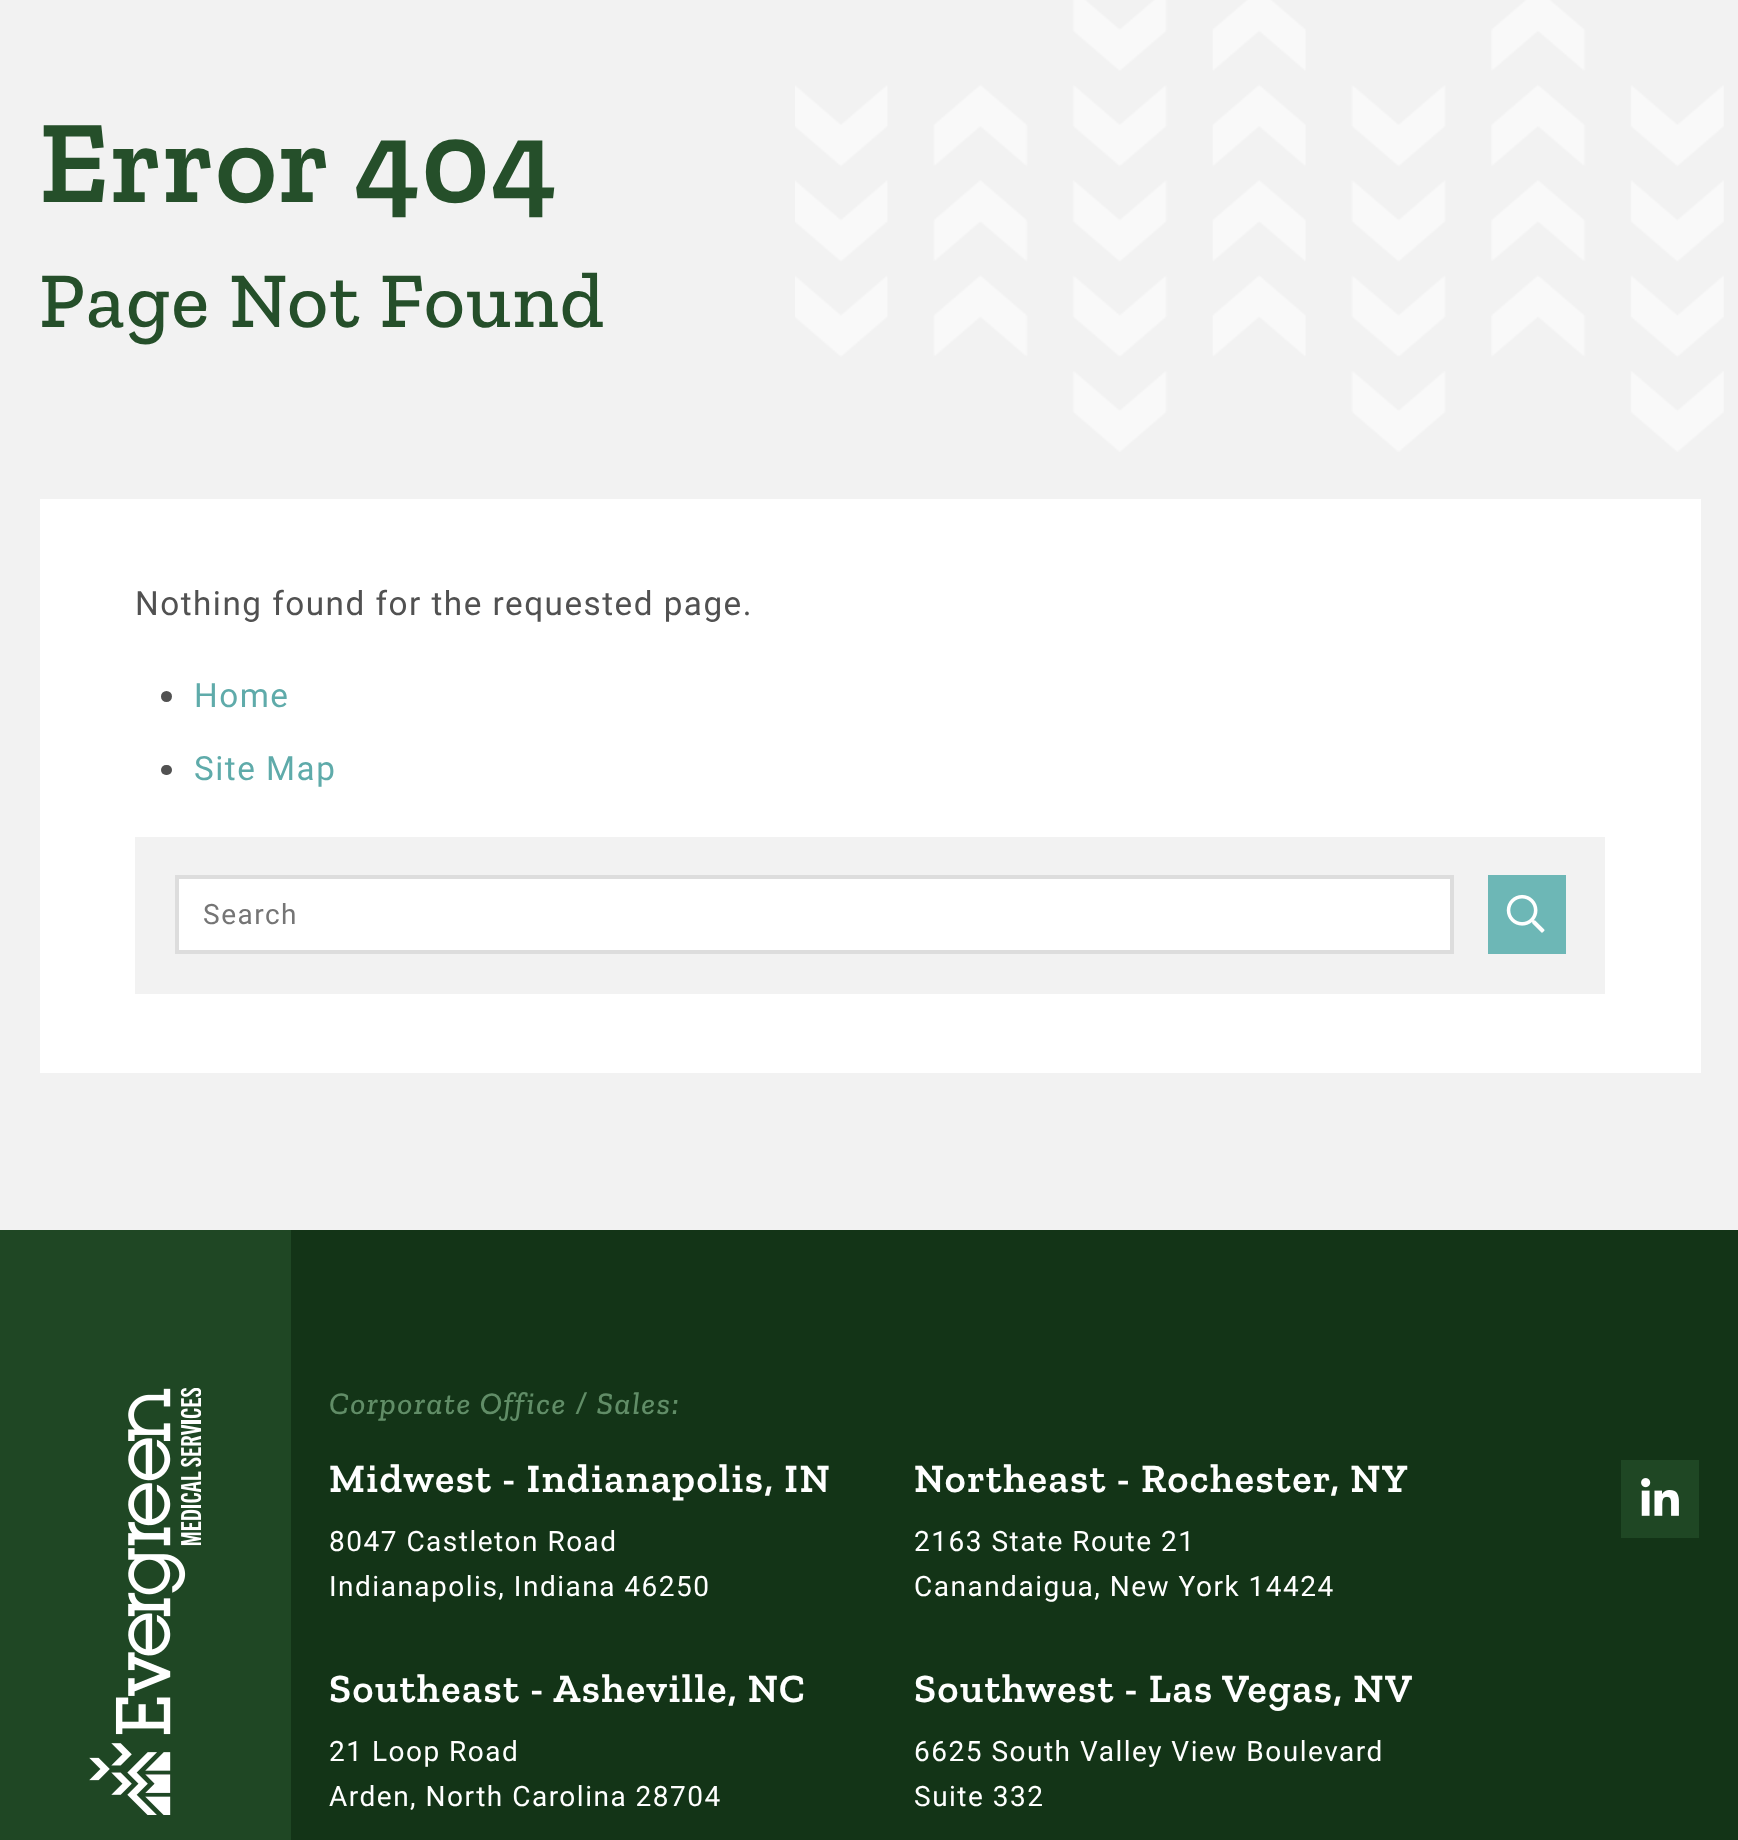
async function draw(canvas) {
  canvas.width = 1738
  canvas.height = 1840
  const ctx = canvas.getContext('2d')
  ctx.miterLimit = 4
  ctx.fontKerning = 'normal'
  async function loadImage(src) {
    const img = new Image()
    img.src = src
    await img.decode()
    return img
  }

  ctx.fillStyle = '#133417'
  ctx.fillRect(0, 0, 1738, 1840)
  ctx.fillStyle = '#f2f2f2'
  ctx.fillRect(0, 0, 1738, 1230)
  ctx.drawImage(await loadImage('image0.png'), 795, 0, 929, 452)
  ctx.letterSpacing = '1.5px'
  ctx.font = '600 118px Zilla Slab'
  ctx.fillStyle = '#254f2a'
  ctx.fillText('Error 404', 39, 202)
  ctx.font = '500 79px Zilla Slab'
  ctx.fillText('Page Not Found', 39, 327)
  ctx.fillStyle = '#fff'
  ctx.fillRect(40, 499, 1661, 574)
  ctx.font = '33.25px Roboto'
  ctx.fillStyle = '#515151'
  ctx.fillText('Nothing found for the requested page.', 135, 615)
  ctx.beginPath()
  ctx.arc(166.5, 696.5, 5.5, 0, 2 * Math.PI)
  ctx.fill()
  ctx.fillStyle = '#5fabaa'
  ctx.fillText('Home', 194, 707)
  ctx.fillStyle = '#515151'
  ctx.beginPath()
  ctx.roundRect(161, 765, 11, 10, 5)
  ctx.fill()
  ctx.fillStyle = '#5fabaa'
  ctx.fillText('Site Map', 194, 780)
  ctx.fillStyle = '#f2f2f2'
  ctx.fillRect(135, 837, 1470, 157)
  ctx.fillStyle = '#fff'
  ctx.beginPath()
  ctx.rect(177, 877, 1275, 75)
  ctx.fill()
  ctx.strokeStyle = '#ddd'
  ctx.lineWidth = 4
  ctx.stroke()
  ctx.font = '28px Roboto'
  ctx.fillStyle = '#757575'
  ctx.fillText('Search', 203, 924)
  ctx.fillStyle = '#6db7b6'
  ctx.fillRect(1488, 875, 78, 79)
  ctx.drawImage(await loadImage('image1.png'), 1506, 894, 39, 39)
  ctx.fillStyle = '#1f4724'
  ctx.fillRect(0, 1230, 291, 610)
  ctx.drawImage(await loadImage('image2.png'), 89, 1388, 112, 427)
  ctx.font = 'italic 500 31.5px Zilla Slab'
  ctx.fillStyle = '#618d67'
  ctx.fillText('Corporate Office / Sales:', 329, 1414)
  ctx.font = '600 40.25px Zilla Slab'
  ctx.fillStyle = '#fff'
  ctx.fillText('Midwest - Indianapolis, IN', 329, 1492)
  ctx.font = '28px Roboto'
  ctx.fillText('8047 Castleton Road', 329, 1551)
  ctx.fillText('Indianapolis, Indiana 46250', 329, 1596)
  ctx.font = '600 40.25px Zilla Slab'
  ctx.fillText('Northeast - Rochester, NY', 914, 1492)
  ctx.font = '28px Roboto'
  ctx.fillText('2163 State Route 21', 914, 1551)
  ctx.fillText('Canandaigua, New York 14424', 914, 1596)
  ctx.font = '600 40.25px Zilla Slab'
  ctx.fillText('Southeast - Asheville, NC', 329, 1702)
  ctx.font = '28px Roboto'
  ctx.fillText('21 Loop Road', 329, 1761)
  ctx.fillText('Arden, North Carolina 28704', 329, 1806)
  ctx.font = '600 40.25px Zilla Slab'
  ctx.fillText('Southwest - Las Vegas, NV', 914, 1702)
  ctx.font = '28px Roboto'
  ctx.fillText('6625 South Valley View Boulevard', 914, 1761)
  ctx.fillText('Suite 332', 914, 1806)
  ctx.fillStyle = '#1f4724'
  ctx.fillRect(1621, 1460, 78, 78)
  ctx.drawImage(await loadImage('image3.png'), 1641, 1478, 38, 38)
}

draw(document.querySelector('canvas'))
